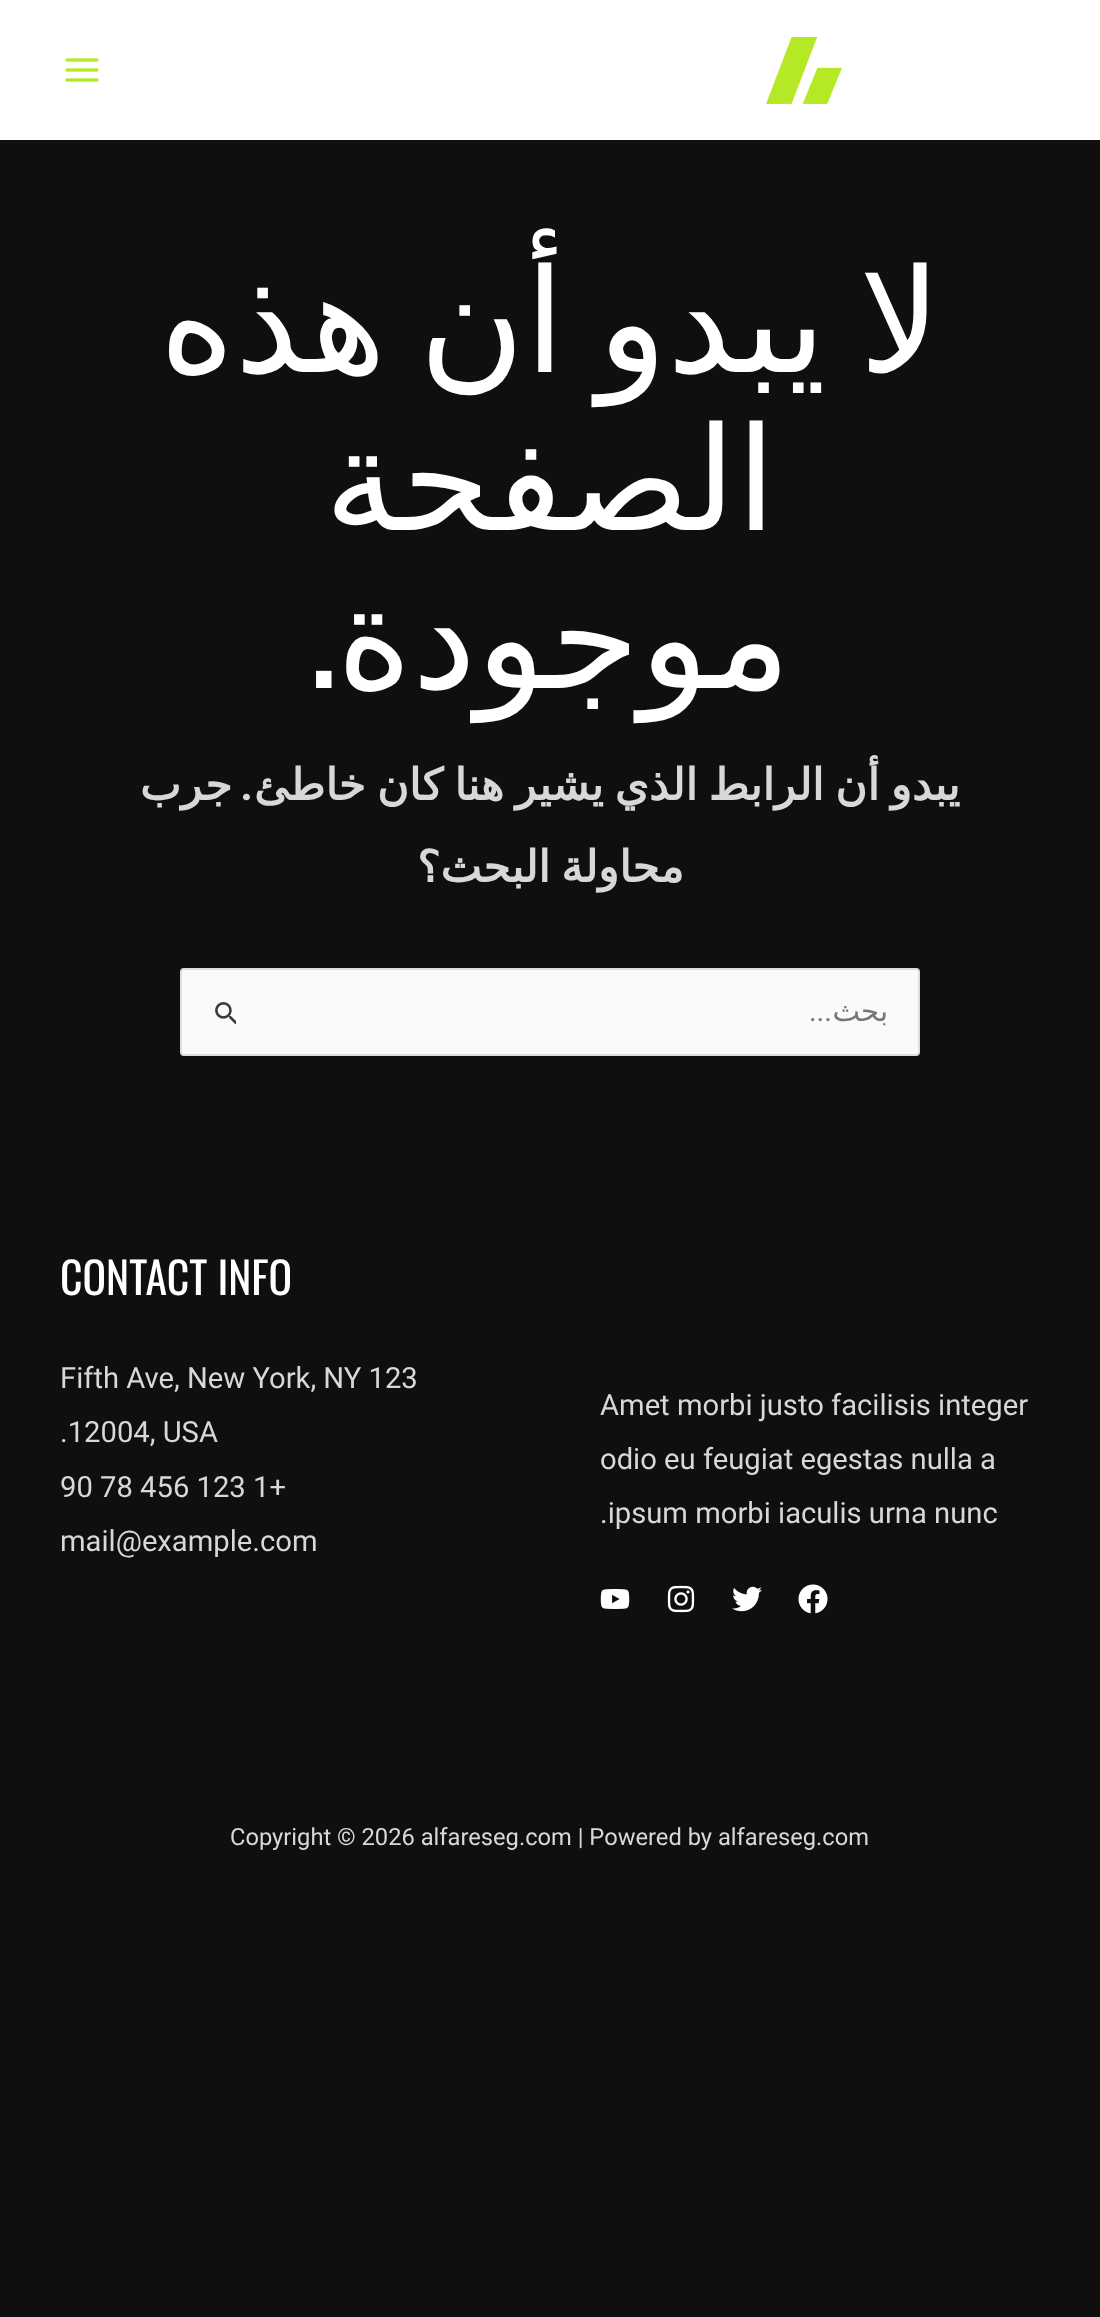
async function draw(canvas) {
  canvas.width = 1100
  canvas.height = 2317
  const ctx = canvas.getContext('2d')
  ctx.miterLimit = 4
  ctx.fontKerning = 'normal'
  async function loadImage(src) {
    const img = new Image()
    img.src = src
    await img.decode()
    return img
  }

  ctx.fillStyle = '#0f0f0f'
  ctx.fillRect(0, 0, 1100, 2317)
  ctx.fillStyle = '#fff'
  ctx.fillRect(0, 0, 1100, 140)
  ctx.drawImage(await loadImage('image0.png'), 65, 58, 34, 24)
  ctx.drawImage(await loadImage('image1.png'), 766, 37, 76, 67)
  ctx.wordSpacing = '-13px'
  ctx.direction = 'rtl'
  ctx.font = '144px DejaVu Sans'
  ctx.fillText('لا يبدو أن هذه', 941, 372)
  ctx.wordSpacing = '0px'
  ctx.fillText('الصفحة', 776, 530)
  ctx.font = '144px Oswald'
  ctx.fillText('.', 336, 688)
  ctx.font = '144px DejaVu Sans'
  ctx.fillText('موجودة', 791, 688)
  ctx.font = 'bold 43.75px DejaVu Sans'
  ctx.fillStyle = '#d8d8d8'
  ctx.fillText('جرب', 232, 800)
  ctx.font = 'bold 43.75px Roboto'
  ctx.fillText('.', 253, 800)
  ctx.wordSpacing = '-2.75px'
  ctx.font = 'bold 43.75px DejaVu Sans'
  ctx.fillText('يبدو أن الرابط الذي يشير هنا كان خاطئ', 960, 800)
  ctx.wordSpacing = '-3px'
  ctx.fillText('محاولة البحث؟', 684, 882)
  ctx.fillStyle = '#fafafa'
  ctx.beginPath()
  ctx.roundRect(181, 969, 738, 86, 3)
  ctx.fill()
  ctx.strokeStyle = '#ddd'
  ctx.lineWidth = 2
  ctx.stroke()
  ctx.drawImage(await loadImage('image2.png'), 215, 1002, 21, 22)
  ctx.wordSpacing = '0px'
  ctx.font = '29.2px Roboto'
  ctx.fillStyle = '#757575'
  ctx.fillText('...', 832, 1021)
  ctx.font = '29.2px DejaVu Sans'
  ctx.fillText('بحث', 888, 1021)
  ctx.direction = 'ltr'
  ctx.font = '43.75px Oswald'
  ctx.fillStyle = '#fff'
  ctx.fillText('CONTACT INFO', 60, 1295)
  ctx.font = '29.2px Roboto'
  ctx.fillStyle = '#d8d8d8'
  ctx.fillText('Fifth Ave, New York, NY 123', 60, 1388)
  ctx.fillText('.12004, USA', 60, 1442)
  ctx.fillText('90 78 456 123 1+', 60, 1497)
  ctx.fillText('mail@example.com', 60, 1551)
  ctx.fillText('Amet morbi justo facilisis integer', 600, 1415)
  ctx.fillText('odio eu feugiat egestas nulla a', 600, 1469)
  ctx.fillText('.ipsum morbi iaculis urna nunc', 600, 1523)
  ctx.drawImage(await loadImage('image3.png'), 600, 1589, 30, 20)
  ctx.drawImage(await loadImage('image4.png'), 667, 1585, 28, 28)
  ctx.drawImage(await loadImage('image5.png'), 732, 1586, 30, 26)
  ctx.drawImage(await loadImage('image6.png'), 798, 1584, 30, 30)
  ctx.font = '23.7px Roboto'
  ctx.fillText('Copyright © 2026 alfareseg.com | Powered by alfareseg.com', 230, 1845)
}

draw(document.querySelector('canvas'))
